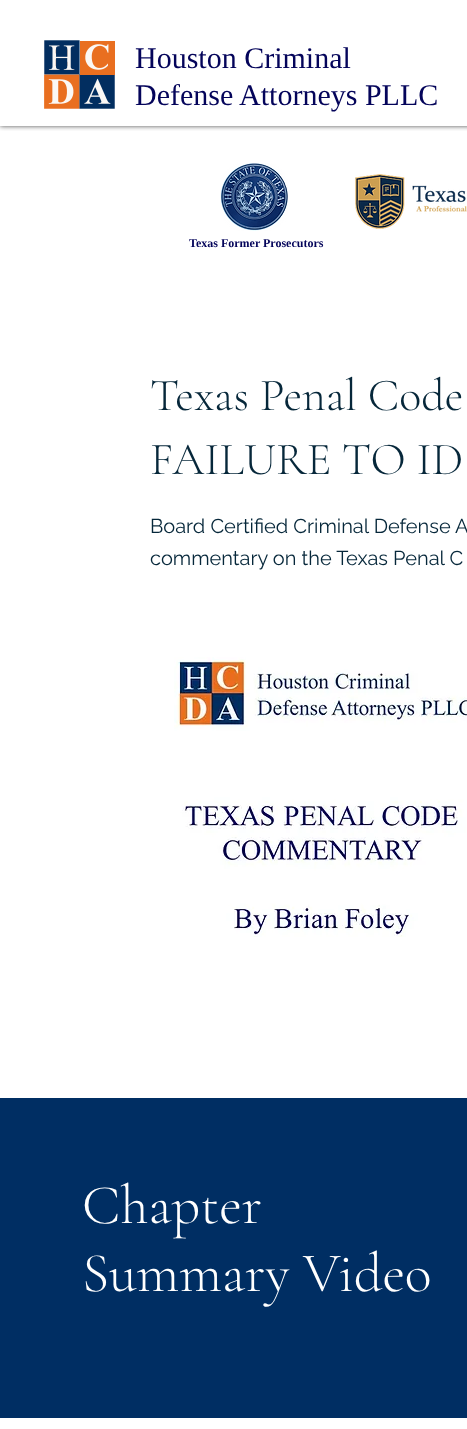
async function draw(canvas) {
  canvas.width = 467
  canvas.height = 1429
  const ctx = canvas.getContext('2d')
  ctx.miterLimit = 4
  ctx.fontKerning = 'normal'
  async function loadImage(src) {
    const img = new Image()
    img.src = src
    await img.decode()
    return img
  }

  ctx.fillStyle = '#fff'
  ctx.fillRect(0, 0, 467, 1429)
  ctx.save()
  ctx.beginPath()
  ctx.rect(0, 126, 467, 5)
  ctx.clip()
  ctx.fillStyle = '#000000b3'
  ctx.filter = 'blur(2.5px)'
  ctx.beginPath()
  ctx.rect(0, 0, 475, 126)
  ctx.fill()
  ctx.filter = 'none'
  ctx.restore()
  ctx.drawImage(await loadImage('image0.png'), 44, 40, 71, 69)
  ctx.font = '30px Liberation Serif'
  ctx.fillStyle = '#04045a'
  ctx.fillText('Houston Criminal', 135, 68)
  ctx.fillText('Defense Attorneys PLLC', 135, 105)
  ctx.drawImage(await loadImage('image1.png'), 220, 163, 68, 68)
  ctx.drawImage(await loadImage('image2.png'), 355, 174, 112, 55)
  ctx.font = 'bold 12px Liberation Serif'
  ctx.fillText('Texas Former Prosecutors', 189, 247)
  ctx.font = '300 46px Cormorant Garamond'
  ctx.fillStyle = '#06273a'
  ctx.fillText('Texas Penal Code', 150, 410)
  ctx.fillText('FAILURE TO ID', 150, 474)
  ctx.font = '20px Raleway'
  ctx.fillText('Board Certified Criminal Defense A', 150, 533)
  ctx.fillText('commentary on the Texas Penal C', 150, 565)
  ctx.drawImage(await loadImage('image3.png'), 174, 657, 293, 280)
  ctx.fillStyle = '#002e63'
  ctx.fillRect(0, 1098, 467, 320)
  ctx.font = '300 56px Cormorant Garamond'
  ctx.fillStyle = '#fff'
  ctx.fillText('Chapter', 82, 1223)
  ctx.fillText('Summary Video', 82, 1291)
}

draw(document.querySelector('canvas'))
